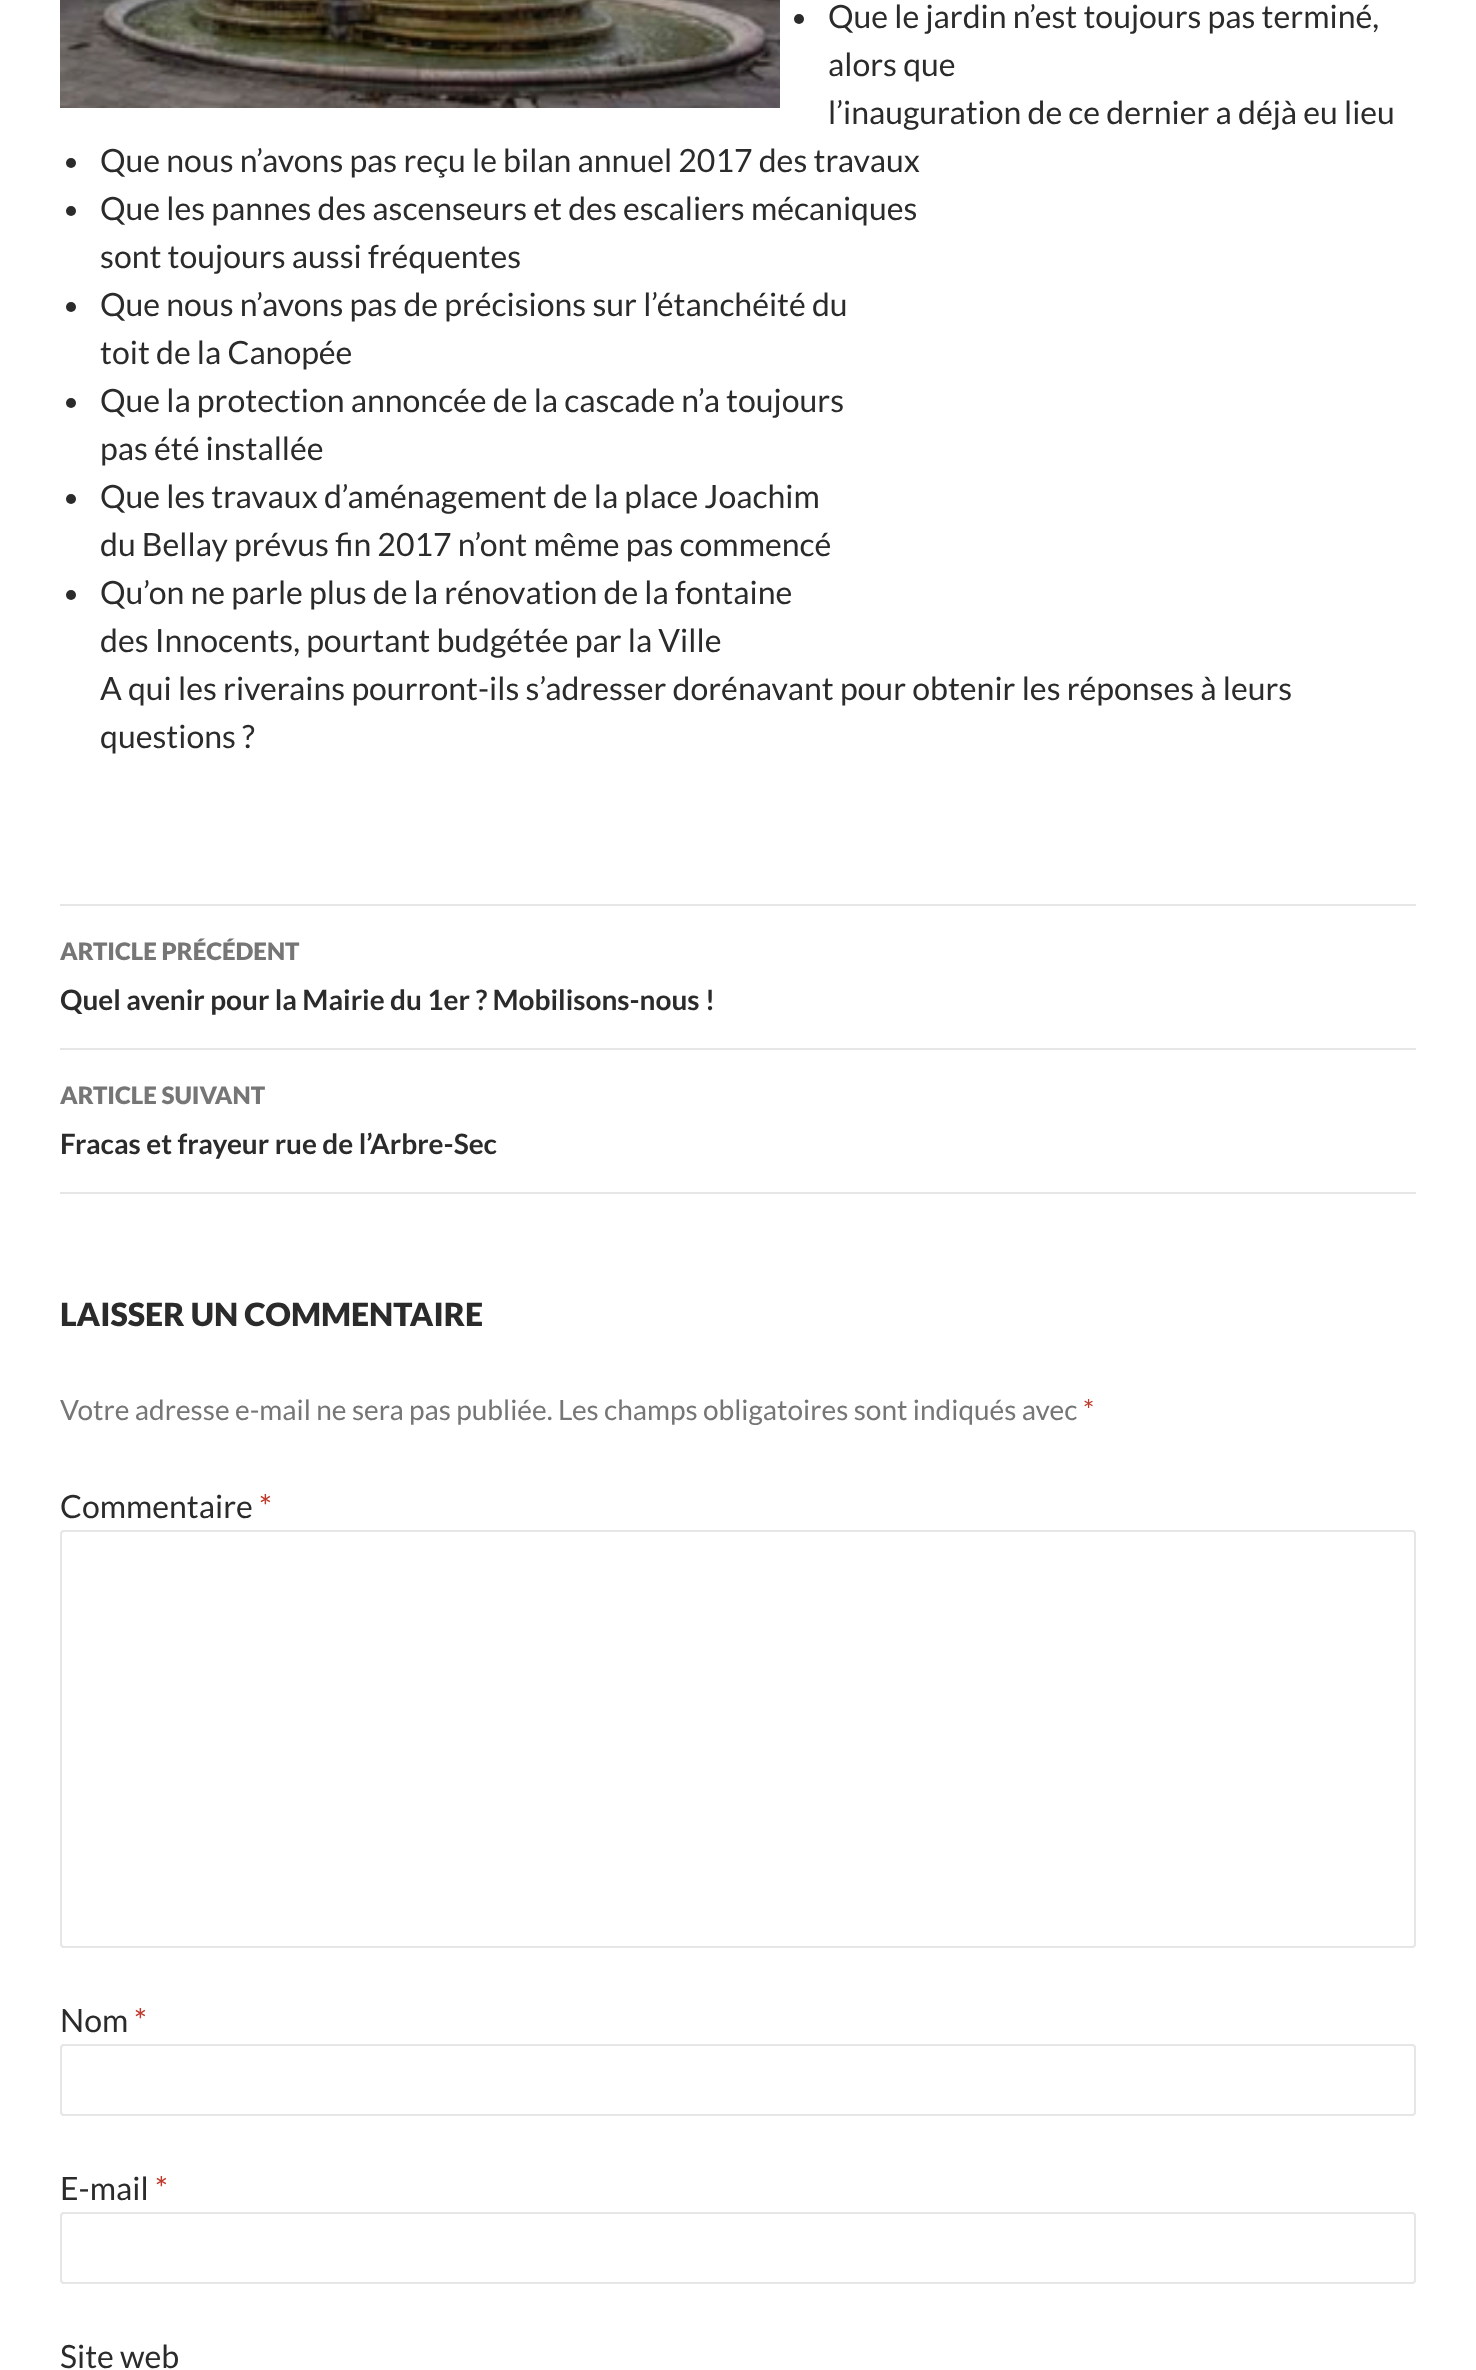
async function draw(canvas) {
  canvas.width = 1476
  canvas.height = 2370
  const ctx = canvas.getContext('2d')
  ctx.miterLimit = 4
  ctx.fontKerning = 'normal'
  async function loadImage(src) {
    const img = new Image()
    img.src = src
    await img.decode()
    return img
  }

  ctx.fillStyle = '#fff'
  ctx.fillRect(0, 0, 1476, 2370)
  ctx.drawImage(await loadImage('image0.png'), 60, 0, 720, 108)
  ctx.fillStyle = '#2b2b2b'
  ctx.beginPath()
  ctx.arc(799, 19, 5, 0, 2 * Math.PI)
  ctx.fill()
  ctx.font = '32px Lato'
  ctx.fillText('Que le jardin n’est toujours pas terminé,', 828, 28)
  ctx.fillText('alors que', 828, 76)
  ctx.fillText('l’inauguration de ce dernier a déjà eu lieu', 828, 124)
  ctx.beginPath()
  ctx.arc(71, 163, 5, 0, 2 * Math.PI)
  ctx.fill()
  ctx.fillText('Que nous n’avons pas reçu le bilan annuel 2017 des travaux', 100, 172)
  ctx.beginPath()
  ctx.arc(71, 211, 5, 0, 2 * Math.PI)
  ctx.fill()
  ctx.fillText('Que les pannes des ascenseurs et des escaliers mécaniques', 100, 220)
  ctx.fillText('sont toujours aussi fréquentes', 100, 268)
  ctx.beginPath()
  ctx.arc(71, 307, 5, 0, 2 * Math.PI)
  ctx.fill()
  ctx.fillText('Que nous n’avons pas de précisions sur l’étanchéité du', 100, 316)
  ctx.fillText('toit de la Canopée', 100, 364)
  ctx.beginPath()
  ctx.arc(71, 403, 5, 0, 2 * Math.PI)
  ctx.fill()
  ctx.fillText('Que la protection annoncée de la cascade n’a toujours', 100, 412)
  ctx.fillText('pas été installée', 100, 460)
  ctx.beginPath()
  ctx.arc(71, 499, 5, 0, 2 * Math.PI)
  ctx.fill()
  ctx.fillText('Que les travaux d’aménagement de la place Joachim', 100, 508)
  ctx.fillText('du Bellay prévus fin 2017 n’ont même pas commencé', 100, 556)
  ctx.beginPath()
  ctx.arc(71, 595, 5, 0, 2 * Math.PI)
  ctx.fill()
  ctx.fillText('Qu’on ne parle plus de la rénovation de la fontaine', 100, 604)
  ctx.fillText('des Innocents, pourtant budgétée par la Ville', 100, 652)
  ctx.fillText('A qui les riverains pourront-ils s’adresser dorénavant pour obtenir les réponses à leurs', 100, 700)
  ctx.fillText('questions ?', 100, 748)
  ctx.fillStyle = '#e6e6e6'
  ctx.fillRect(60, 904, 1356, 2)
  ctx.fillRect(60, 1048, 1356, 2)
  ctx.font = '900 24px Lato'
  ctx.fillStyle = '#767676'
  ctx.fillText('ARTICLE PRÉCÉDENT', 60, 960)
  ctx.font = 'bold 28px Lato'
  ctx.fillStyle = '#2b2b2b'
  ctx.fillText('Quel avenir pour la Mairie du 1er ? Mobilisons-nous !', 60, 1010)
  ctx.fillStyle = '#e6e6e6'
  ctx.fillRect(60, 1192, 1356, 2)
  ctx.font = '900 24px Lato'
  ctx.fillStyle = '#767676'
  ctx.fillText('ARTICLE SUIVANT', 60, 1104)
  ctx.font = 'bold 28px Lato'
  ctx.fillStyle = '#2b2b2b'
  ctx.fillText('Fracas et frayeur rue de l’Arbre-Sec', 60, 1154)
  ctx.font = '900 32px Lato'
  ctx.fillText('LAISSER UN COMMENTAIRE', 60, 1326)
  ctx.font = '28px Lato'
  ctx.fillStyle = '#767676'
  ctx.fillText('Votre adresse e-mail ne sera pas publiée. Les champs obligatoires sont indiqués avec', 60, 1420)
  ctx.fillStyle = '#c0392b'
  ctx.fillText('*', 1083, 1420)
  ctx.font = '32px Lato'
  ctx.fillStyle = '#2b2b2b'
  ctx.fillText('Commentaire', 60, 1518)
  ctx.fillStyle = '#c0392b'
  ctx.fillText('*', 259, 1518)
  ctx.beginPath()
  ctx.roundRect(61, 1531, 1354, 416, 3)
  ctx.strokeStyle = '#e6e6e6'
  ctx.lineWidth = 2
  ctx.stroke()
  ctx.fillStyle = '#2b2b2b'
  ctx.fillText('Nom', 60, 2032)
  ctx.fillStyle = '#c0392b'
  ctx.fillText('*', 134, 2032)
  ctx.beginPath()
  ctx.roundRect(61, 2045, 1354, 70, 3)
  ctx.stroke()
  ctx.fillStyle = '#2b2b2b'
  ctx.fillText('E-mail', 60, 2200)
  ctx.fillStyle = '#c0392b'
  ctx.fillText('*', 155, 2200)
  ctx.beginPath()
  ctx.roundRect(61, 2213, 1354, 70, 3)
  ctx.stroke()
  ctx.fillStyle = '#2b2b2b'
  ctx.fillText('Site web', 60, 2368)
}

draw(document.querySelector('canvas'))
